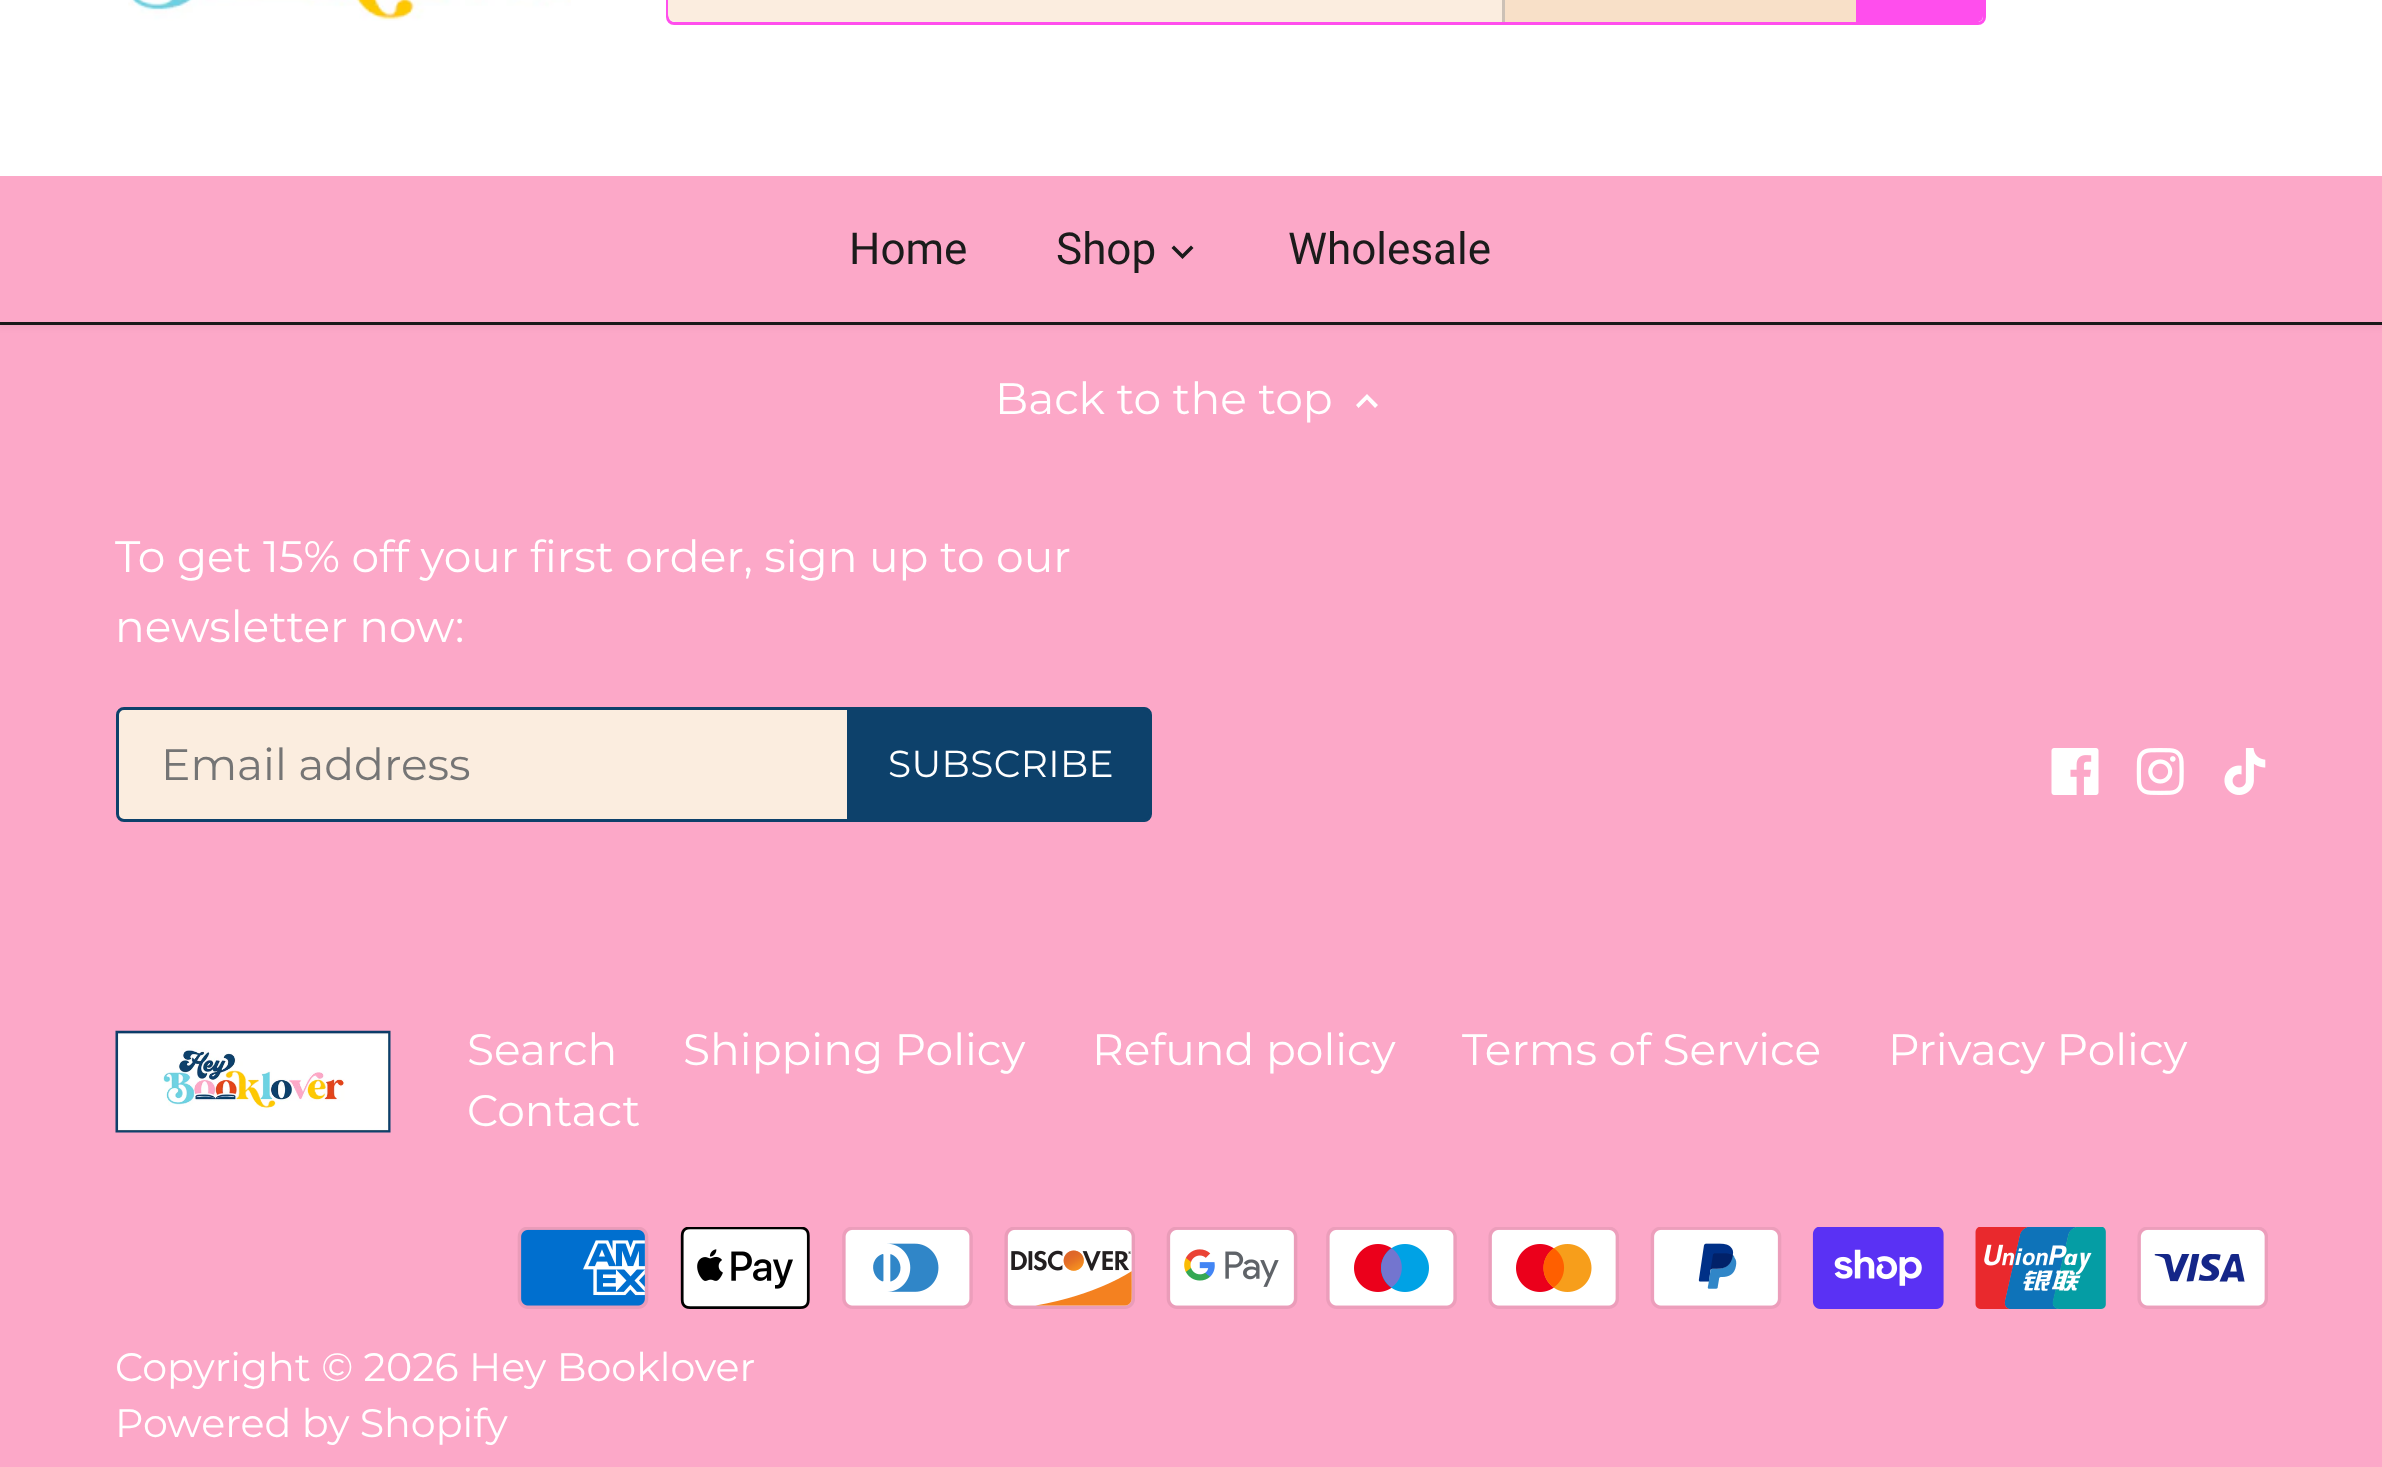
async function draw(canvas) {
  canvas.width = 2382
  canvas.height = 1467
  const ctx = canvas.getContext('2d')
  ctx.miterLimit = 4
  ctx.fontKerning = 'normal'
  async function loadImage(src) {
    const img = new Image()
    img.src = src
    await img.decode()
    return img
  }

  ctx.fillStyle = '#fca8c8'
  ctx.fillRect(0, 0, 2382, 1467)
  ctx.fillStyle = '#1b1b1b'
  ctx.fillRect(0, 322, 2382, 3)
  ctx.fillStyle = '#00000014'
  ctx.filter = 'blur(4px)'
  ctx.beginPath()
  ctx.rect(-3, -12, 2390, 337)
  ctx.fill()
  ctx.filter = 'none'
  ctx.fillStyle = '#fca8c8'
  ctx.fillRect(0, 176, 2382, 146)
  ctx.fillStyle = '#fff'
  ctx.fillRect(0, 0, 2382, 176)
  ctx.drawImage(await loadImage('image0.png'), 128, 0, 443, 21)
  ctx.beginPath()
  ctx.roundRect(667.5, -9.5, 1317, 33, 6.5)
  ctx.strokeStyle = '#ff4eed'
  ctx.lineWidth = 3
  ctx.stroke()
  ctx.fillStyle = '#fbeddf'
  ctx.beginPath()
  ctx.moveTo(676, -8)
  ctx.lineTo(1502, -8)
  ctx.lineTo(1502, 22)
  ctx.lineTo(676, 22)
  ctx.bezierCurveTo(671.5, 22, 668, 18.5, 668, 14)
  ctx.lineTo(668, 0)
  ctx.bezierCurveTo(668, -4.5, 671.5, -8, 676, -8)
  ctx.closePath()
  ctx.fill()
  ctx.fillStyle = '#f8e0c8'
  ctx.fillRect(1505, 0, 351, 22)
  ctx.fillStyle = '#ccc1b6'
  ctx.fillRect(1502, 0, 3, 22)
  ctx.fillStyle = '#ff4eed'
  ctx.beginPath()
  ctx.moveTo(1856, -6)
  ctx.lineTo(1977, -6)
  ctx.bezierCurveTo(1980.5, -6, 1983, -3.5, 1983, 0)
  ctx.lineTo(1983, 16)
  ctx.bezierCurveTo(1983, 19.5, 1980.5, 22, 1977, 22)
  ctx.lineTo(1856, 22)
  ctx.closePath()
  ctx.fill()
  ctx.font = '44px Roboto'
  ctx.fillStyle = '#1b1b1b'
  ctx.fillText('Home', 849, 264)
  ctx.fillText('Shop', 1056, 264)
  ctx.beginPath()
  ctx.moveTo(1174, 245.5)
  ctx.lineTo(1182.5, 254)
  ctx.lineTo(1191, 245.5)
  ctx.lineTo(1193.5, 248)
  ctx.lineTo(1182.5, 259)
  ctx.lineTo(1171.5, 248)
  ctx.closePath()
  ctx.fill()
  ctx.fillText('Wholesale', 1288, 264)
  ctx.font = '44px Montserrat'
  ctx.fillStyle = '#fff'
  ctx.fillText('Back to the top', 995, 414)
  ctx.beginPath()
  ctx.moveTo(1358.5, 408)
  ctx.lineTo(1367, 399.5)
  ctx.lineTo(1375, 408)
  ctx.lineTo(1378, 405)
  ctx.lineTo(1367, 394)
  ctx.lineTo(1356, 405)
  ctx.closePath()
  ctx.fill()
  ctx.fillText('To get 15% off your first order, sign up to our', 115, 572)
  ctx.fillText('newsletter now:', 115, 642)
  ctx.fillStyle = '#fbeddf'
  ctx.beginPath()
  ctx.roundRect(117.5, 708.5, 1031, 112, 6.5)
  ctx.fill()
  ctx.strokeStyle = '#0d416b'
  ctx.stroke()
  ctx.fillStyle = '#757575'
  ctx.fillText('Email address', 161, 780)
  ctx.fillStyle = '#0d416b'
  ctx.beginPath()
  ctx.roundRect(848.5, 708.5, 302, 112, [0, 6.5, 6.5, 0])
  ctx.fill()
  ctx.stroke()
  ctx.letterSpacing = '0.4px'
  ctx.font = '37.5px Montserrat'
  ctx.fillStyle = '#fff'
  ctx.fillText('SUBSCRIBE', 888, 777)
  ctx.drawImage(await loadImage('image1.png'), 2051, 748, 48, 47)
  ctx.drawImage(await loadImage('image2.png'), 2136, 748, 48, 47)
  ctx.drawImage(await loadImage('image3.png'), 2224, 748, 42, 47)
  ctx.drawImage(await loadImage('image4.png'), 115, 1030, 276, 103)
  ctx.letterSpacing = '0px'
  ctx.font = '44px Montserrat'
  ctx.fillText('Search', 467, 1065)
  ctx.fillText('Shipping Policy', 683, 1065)
  ctx.fillText('Refund policy', 1092, 1065)
  ctx.fillText('Terms of Service', 1462, 1065)
  ctx.fillText('Privacy Policy', 1888, 1065)
  ctx.fillText('Contact', 467, 1126)
  ctx.drawImage(await loadImage('image5.png'), 517, 1227, 132, 82)
  ctx.drawImage(await loadImage('image6.png'), 680, 1227, 130, 82)
  ctx.drawImage(await loadImage('image7.png'), 842, 1227, 131, 82)
  ctx.drawImage(await loadImage('image8.png'), 1004, 1227, 131, 82)
  ctx.drawImage(await loadImage('image9.png'), 1166, 1227, 132, 82)
  ctx.drawImage(await loadImage('image10.png'), 1326, 1227, 131, 82)
  ctx.drawImage(await loadImage('image11.png'), 1488, 1227, 131, 82)
  ctx.drawImage(await loadImage('image12.png'), 1650, 1227, 132, 82)
  ctx.drawImage(await loadImage('image13.png'), 1812, 1227, 132, 82)
  ctx.drawImage(await loadImage('image14.png'), 1975, 1227, 131, 82)
  ctx.drawImage(await loadImage('image15.png'), 2137, 1227, 131, 82)
  ctx.font = '39.6px Montserrat'
  ctx.fillText('Copyright © 2026 Hey Booklover', 115, 1381)
  ctx.fillText('Powered by Shopify', 115, 1437)
}

draw(document.querySelector('canvas'))
